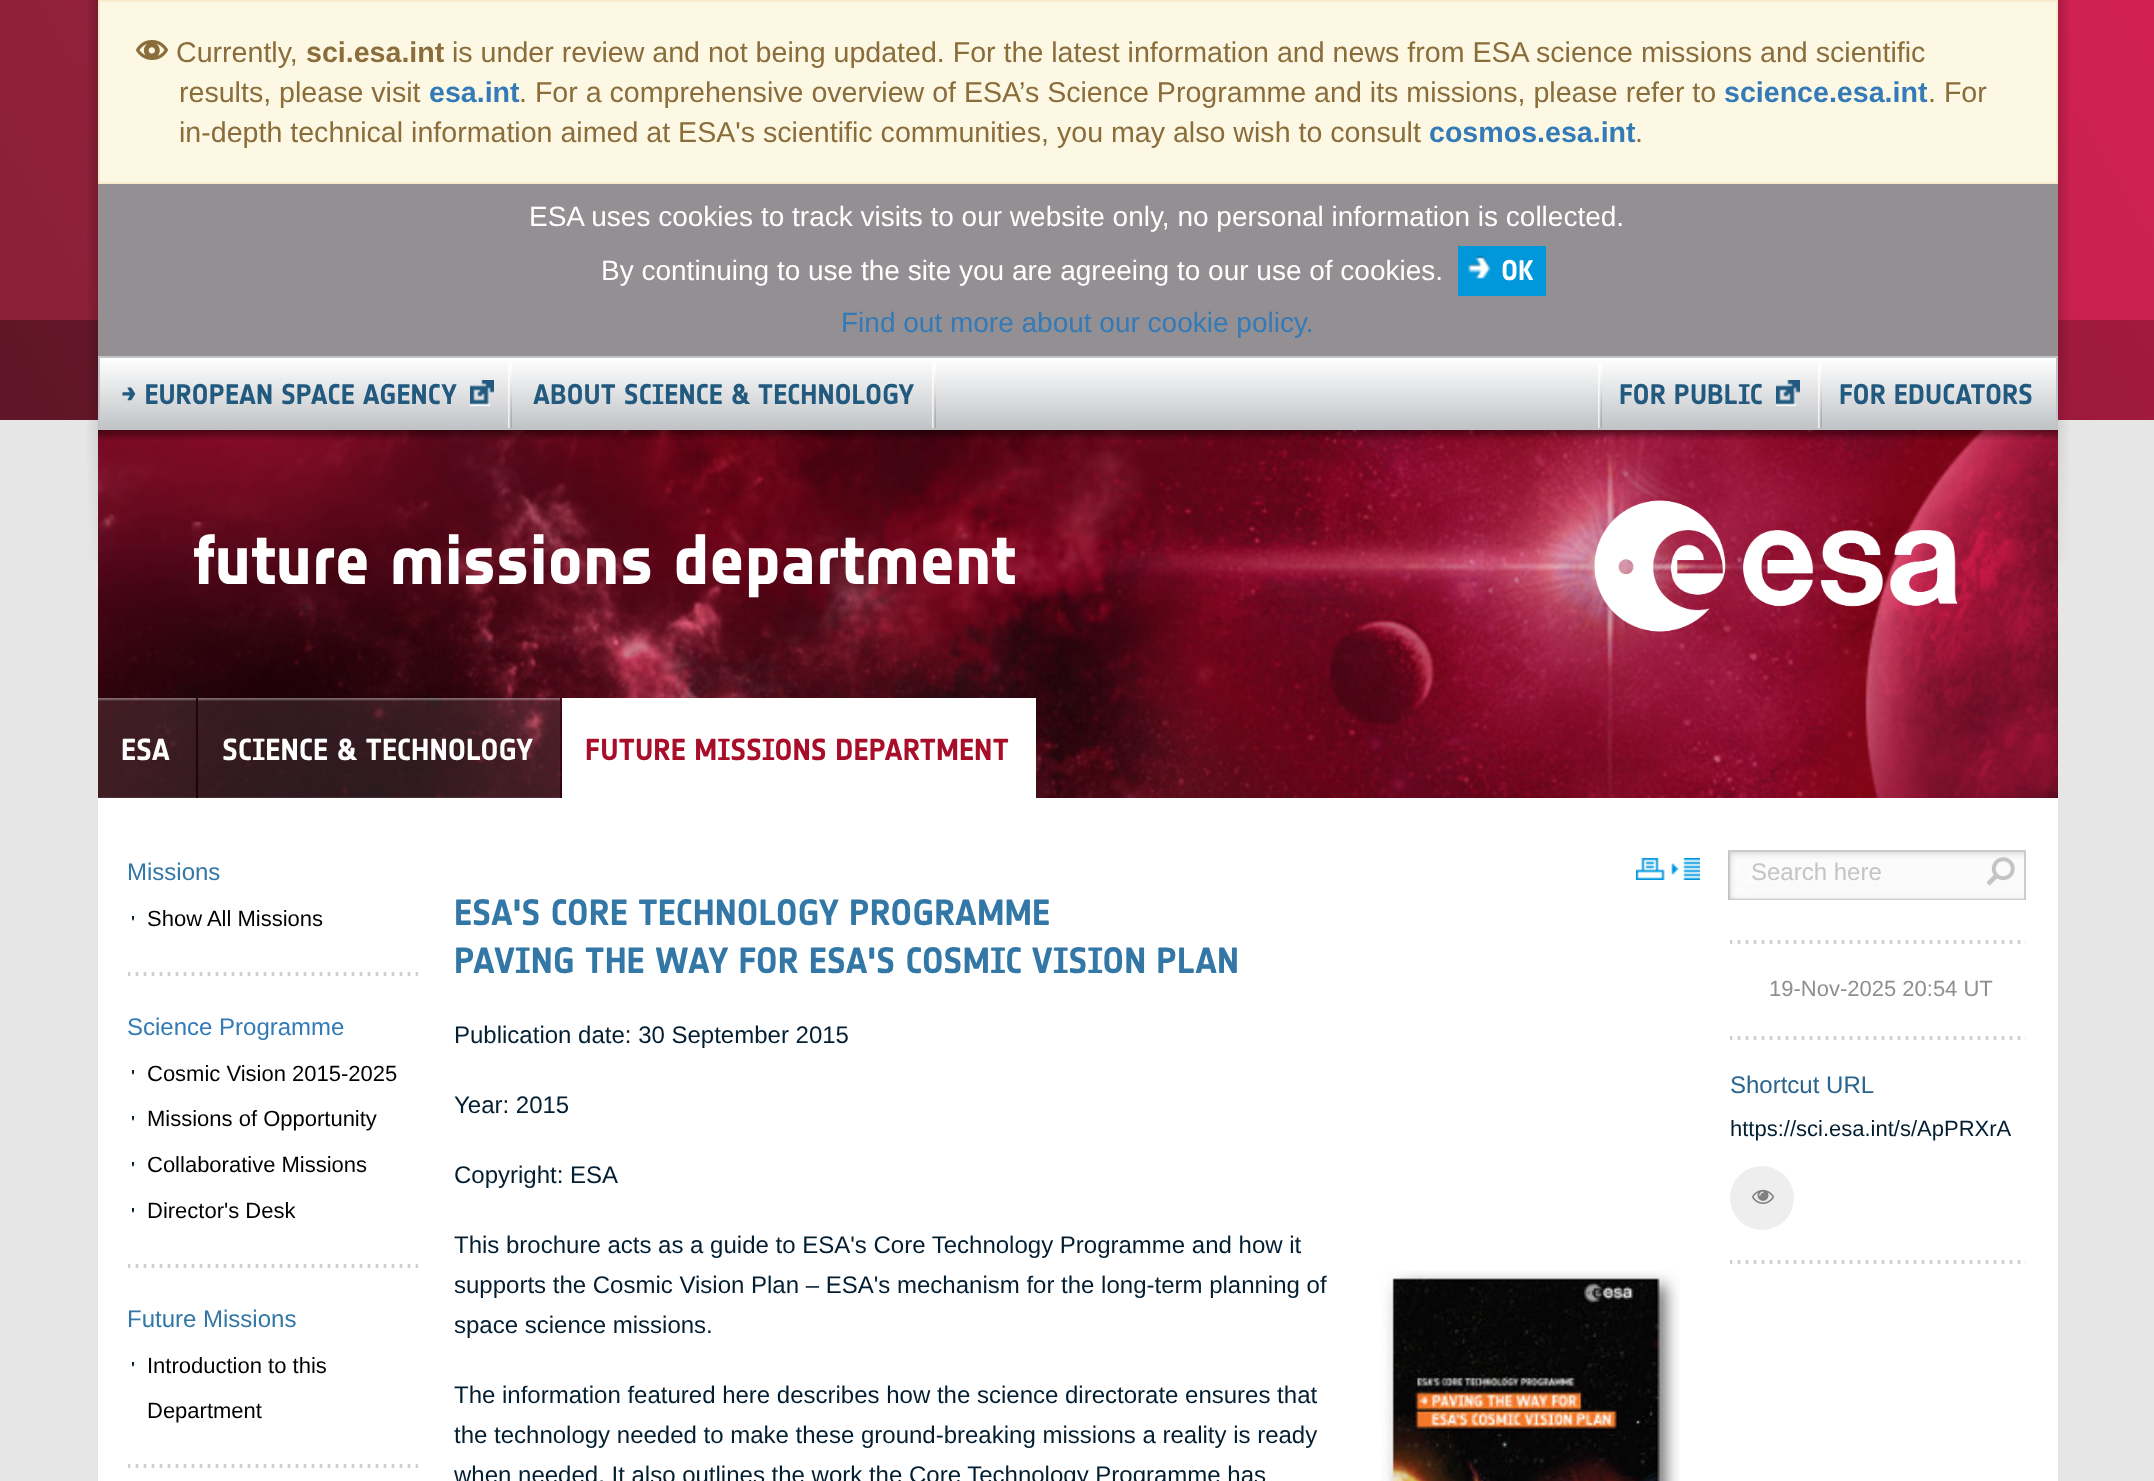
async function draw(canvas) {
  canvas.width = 2154
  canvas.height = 1481
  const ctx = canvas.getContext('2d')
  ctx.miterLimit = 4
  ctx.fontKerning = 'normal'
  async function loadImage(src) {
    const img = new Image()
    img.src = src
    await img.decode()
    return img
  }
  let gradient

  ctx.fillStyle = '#e6e6e6'
  ctx.fillRect(0, 0, 2154, 1481)
  gradient = ctx.createLinearGradient(200, 666, 1954, -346)
  gradient.addColorStop(0, '#8a2038')
  gradient.addColorStop(1, '#d12152')
  ctx.fillStyle = gradient
  ctx.fillRect(0, 0, 2154, 320)
  gradient = ctx.createLinearGradient(248, 849, 1906, -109)
  gradient.addColorStop(0, '#5f1626')
  gradient.addColorStop(1, '#a21a3e')
  ctx.fillStyle = gradient
  ctx.fillRect(0, 320, 2154, 100)
  ctx.drawImage(await loadImage('image0.png'), 87, 0, 11, 561)
  ctx.fillStyle = '#fcf8e3'
  ctx.beginPath()
  ctx.rect(99, 1, 1958, 182)
  ctx.fill()
  ctx.strokeStyle = '#faebcc'
  ctx.lineWidth = 2
  ctx.stroke()
  ctx.drawImage(await loadImage('image1.png'), 136, 40, 32, 20)
  ctx.font = '28.6px Liberation Sans'
  ctx.fillStyle = '#8a6d3b'
  ctx.fillText('Currently,', 176, 62)
  ctx.font = 'bold 28.6px Liberation Sans'
  ctx.fillText('sci.esa.int', 306, 62)
  ctx.font = '28.6px Liberation Sans'
  ctx.fillText('is under review and not being updated. For the latest information and news from ESA science missions and scientific', 452, 62)
  ctx.fillText('results, please visit', 179, 102)
  ctx.font = 'bold 28.6px Liberation Sans'
  ctx.fillStyle = '#337ab7'
  ctx.fillText('esa.int', 429, 102)
  ctx.font = '28.6px Liberation Sans'
  ctx.fillStyle = '#8a6d3b'
  ctx.fillText('. For a comprehensive overview of ESA’s Science Programme and its missions, please refer to', 519, 102)
  ctx.font = 'bold 28.6px Liberation Sans'
  ctx.fillStyle = '#337ab7'
  ctx.fillText('science.esa.int', 1724, 102)
  ctx.font = '28.6px Liberation Sans'
  ctx.fillStyle = '#8a6d3b'
  ctx.fillText('. For', 1928, 102)
  ctx.fillText('in-depth technical information aimed at ESA\'s scientific communities, you may also wish to consult', 179, 142)
  ctx.font = 'bold 28.6px Liberation Sans'
  ctx.fillStyle = '#337ab7'
  ctx.fillText('cosmos.esa.int', 1429, 142)
  ctx.font = '28.6px Liberation Sans'
  ctx.fillStyle = '#8a6d3b'
  ctx.fillText('.', 1635, 142)
  ctx.drawImage(await loadImage('image2.png'), 2058, 0, 11, 561)
  ctx.fillStyle = '#938f93'
  ctx.fillRect(98, 184, 1960, 172)
  ctx.font = '28px Liberation Sans'
  ctx.fillStyle = '#fff'
  ctx.fillText('ESA uses cookies to track visits to our website only, no personal information is collected.', 529, 226)
  ctx.fillText('By continuing to use the site you are agreeing to our use of cookies.', 601, 280)
  ctx.fillStyle = '#0098db'
  ctx.fillRect(1458, 246, 88, 50)
  ctx.drawImage(await loadImage('image3.png'), 1468, 255, 23, 24)
  ctx.font = 'bold 28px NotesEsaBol'
  ctx.fillStyle = '#fff'
  ctx.fillText('OK', 1501, 280)
  ctx.font = '28px Liberation Sans'
  ctx.fillStyle = '#337ab7'
  ctx.fillText('Find out more about our cookie policy.', 841, 332)
  gradient = ctx.createLinearGradient(1078, 358, 1078, 428)
  gradient.addColorStop(0, '#fff')
  gradient.addColorStop(1, '#c1c4c7')
  ctx.fillStyle = gradient
  ctx.fillRect(100, 358, 1956, 70)
  ctx.strokeStyle = '#c1c4c7'
  ctx.strokeRect(99, 357, 1958, 72)
  ctx.drawImage(await loadImage('image4.png'), 508, 363, 4, 65)
  ctx.drawImage(await loadImage('image5.png'), 470, 380, 24, 26)
  ctx.font = 'bold 28px NotesEsaBol'
  ctx.fillStyle = '#22597e'
  ctx.fillText('→ EUROPEAN SPACE AGENCY', 121, 404)
  ctx.drawImage(await loadImage('image4.png'), 932, 363, 4, 65)
  ctx.fillText('ABOUT SCIENCE & TECHNOLOGY', 533, 404)
  ctx.drawImage(await loadImage('image4.png'), 1598, 363, 4, 65)
  ctx.drawImage(await loadImage('image5.png'), 1776, 380, 24, 26)
  ctx.fillText('FOR PUBLIC', 1619, 404)
  ctx.drawImage(await loadImage('image4.png'), 1818, 363, 4, 65)
  ctx.fillText('FOR EDUCATORS', 1839, 404)
  ctx.drawImage(await loadImage('image6.png'), 98, 430, 1960, 368)
  ctx.drawImage(await loadImage('image7.png'), 98, 430, 1960, 10)
  ctx.font = 'bold 70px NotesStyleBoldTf'
  ctx.fillStyle = '#fff'
  ctx.fillText('future missions department', 193, 584)
  ctx.drawImage(await loadImage('image8.png'), 1594, 500, 364, 132)
  ctx.drawImage(await loadImage('image9.png'), 98, 698, 98, 100)
  ctx.font = 'bold 30px NotesEsaBol'
  ctx.fillText('ESA', 121, 760)
  ctx.drawImage(await loadImage('image10.png'), 198, 698, 362, 100)
  ctx.fillText('SCIENCE & TECHNOLOGY', 222, 760)
  ctx.fillRect(562, 698, 474, 100)
  ctx.fillStyle = '#a80e29'
  ctx.fillText('FUTURE MISSIONS DEPARTMENT', 585, 760)
  ctx.fillStyle = '#fff'
  ctx.fillRect(98, 798, 1960, 683)
  ctx.font = '24px Liberation Sans'
  ctx.fillStyle = '#3277a6'
  ctx.fillText('Missions', 127, 880)
  ctx.drawImage(await loadImage('image11.png'), 132, 916, 2, 5)
  ctx.font = '22px Liberation Sans'
  ctx.fillStyle = '#000'
  ctx.fillText('Show All Missions', 147, 926)
  ctx.drawImage(await loadImage('image12.png'), 128, 972, 290, 4)
  ctx.font = '24px Liberation Sans'
  ctx.fillStyle = '#337ab7'
  ctx.fillText('Science Programme', 127, 1035)
  ctx.drawImage(await loadImage('image11.png'), 132, 1070, 2, 5)
  ctx.font = '22px Liberation Sans'
  ctx.fillStyle = '#000'
  ctx.fillText('Cosmic Vision 2015-2025', 147, 1081)
  ctx.drawImage(await loadImage('image11.png'), 132, 1116, 2, 5)
  ctx.fillText('Missions of Opportunity', 147, 1126)
  ctx.drawImage(await loadImage('image11.png'), 132, 1162, 2, 5)
  ctx.fillText('Collaborative Missions', 147, 1172)
  ctx.drawImage(await loadImage('image11.png'), 132, 1208, 2, 5)
  ctx.fillText('Director\'s Desk', 147, 1218)
  ctx.drawImage(await loadImage('image12.png'), 128, 1264, 290, 4)
  ctx.font = '24px Liberation Sans'
  ctx.fillStyle = '#3277a6'
  ctx.fillText('Future Missions', 127, 1327)
  ctx.drawImage(await loadImage('image11.png'), 132, 1362, 2, 5)
  ctx.font = '22px Liberation Sans'
  ctx.fillStyle = '#000'
  ctx.fillText('Introduction to this', 147, 1373)
  ctx.fillText('Department', 147, 1418)
  ctx.drawImage(await loadImage('image12.png'), 128, 1464, 290, 4)
  ctx.drawImage(await loadImage('image13.png'), 1636, 858, 64, 22)
  ctx.font = 'bold 36px NotesEsaBol'
  ctx.fillStyle = '#3277a6'
  ctx.fillText('ESA\'S CORE TECHNOLOGY PROGRAMME', 454, 925)
  ctx.fillText('PAVING THE WAY FOR ESA\'S COSMIC VISION PLAN', 454, 973)
  ctx.font = '24px Liberation Sans'
  ctx.fillStyle = '#031e31'
  ctx.fillText('Publication date: 30 September 2015', 454, 1043)
  ctx.fillText('Year: 2015', 454, 1113)
  ctx.fillText('Copyright: ESA', 454, 1183)
  ctx.fillText('This brochure acts as a guide to ESA\'s Core Technology Programme and how it', 454, 1253)
  ctx.fillText('supports the Cosmic Vision Plan – ESA\'s mechanism for the long-term planning of', 454, 1293)
  ctx.fillText('space science missions.', 454, 1333)
  ctx.drawImage(await loadImage('image14.png'), 1380, 1270, 300, 211)
  ctx.fillText('The information featured here describes how the science directorate ensures that', 454, 1403)
  ctx.fillText('the technology needed to make these ground-breaking missions a reality is ready', 454, 1443)
  ctx.fillText('when needed. It also outlines the work the Core Technology Programme has', 454, 1483)
  ctx.drawImage(await loadImage('image15.png'), 1728, 852, 296, 48)
  ctx.fillStyle = '#ccc'
  ctx.fillRect(1728, 850, 298, 2)
  ctx.fillRect(2024, 850, 2, 50)
  ctx.fillStyle = '#c4c4c4'
  ctx.fillText('Search here', 1751, 880)
  ctx.drawImage(await loadImage('image16.png'), 1986, 857, 29, 29)
  ctx.drawImage(await loadImage('image17.png'), 1730, 940, 296, 4)
  ctx.font = '22px Liberation Sans'
  ctx.fillStyle = '#928d91'
  ctx.fillText('19-Nov-2025 20:54 UT', 1769, 996)
  ctx.drawImage(await loadImage('image17.png'), 1730, 1036, 296, 4)
  ctx.font = '24px Liberation Sans'
  ctx.fillStyle = '#29648d'
  ctx.fillText('Shortcut URL', 1730, 1093)
  ctx.font = '22px Liberation Sans'
  ctx.fillStyle = '#031e31'
  ctx.fillText('https://sci.esa.int/s/ApPRXrA', 1730, 1136)
  ctx.fillStyle = '#eee'
  ctx.beginPath()
  ctx.arc(1762, 1198, 32, 0, 2 * Math.PI)
  ctx.fill()
  ctx.drawImage(await loadImage('image18.png'), 1752, 1189, 22, 15)
  ctx.drawImage(await loadImage('image17.png'), 1730, 1260, 296, 4)
}

draw(document.querySelector('canvas'))
